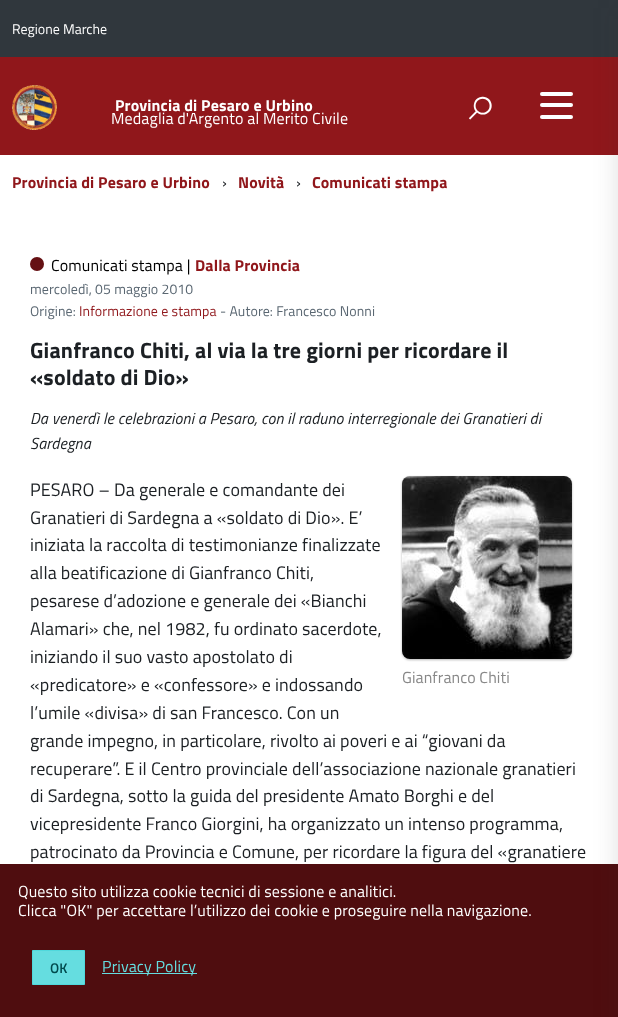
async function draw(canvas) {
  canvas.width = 618
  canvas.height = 1017
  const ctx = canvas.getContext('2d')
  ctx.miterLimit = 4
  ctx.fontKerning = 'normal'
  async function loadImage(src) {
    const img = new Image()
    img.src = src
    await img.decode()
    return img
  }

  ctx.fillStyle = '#fff'
  ctx.fillRect(0, 0, 618, 1017)
  ctx.fillStyle = '#30373d'
  ctx.fillRect(0, 0, 618, 57)
  ctx.font = '14px Titillium Web'
  ctx.fillStyle = '#fff'
  ctx.fillText('Regione Marche', 12, 34)
  ctx.fillStyle = '#90171b'
  ctx.fillRect(0, 57, 618, 98)
  ctx.drawImage(await loadImage('image0.png'), 12, 85, 45, 45)
  ctx.letterSpacing = '0.15px'
  ctx.font = 'bold 16px Titillium Web'
  ctx.fillStyle = '#fff'
  ctx.fillText('Provincia di Pesaro e Urbino', 115, 111)
  ctx.font = '16px Titillium Web'
  ctx.fillText('Medaglia d\'Argento al Merito Civile', 111, 124)
  ctx.letterSpacing = '0px'
  ctx.font = 'bold 22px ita'
  ctx.fillText('🔍', 469, 118)
  ctx.beginPath()
  ctx.roundRect(540, 103, 33, 4, 2)
  ctx.fill()
  ctx.beginPath()
  ctx.roundRect(540, 92, 33, 4, 2)
  ctx.fill()
  ctx.beginPath()
  ctx.roundRect(540, 115, 33, 4, 2)
  ctx.fill()
  ctx.fillStyle = '#4f0d0f'
  ctx.fillRect(0, 864, 618, 153)
  ctx.fillStyle = '#32323226'
  ctx.filter = 'blur(12px)'
  ctx.beginPath()
  ctx.rect(618, 8, 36, 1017)
  ctx.fill()
  ctx.filter = 'none'
  ctx.letterSpacing = '0.15px'
  ctx.font = 'bold 16px Titillium Web'
  ctx.fillStyle = '#90171b'
  ctx.fillText('Provincia di Pesaro e Urbino', 12, 188)
  ctx.letterSpacing = '0px'
  ctx.font = '16px Titillium Web'
  ctx.fillStyle = '#1c2024'
  ctx.fillText('›', 222, 188)
  ctx.letterSpacing = '0.15px'
  ctx.font = 'bold 16px Titillium Web'
  ctx.fillStyle = '#90171b'
  ctx.fillText('Novità', 238, 188)
  ctx.letterSpacing = '0px'
  ctx.font = '16px Titillium Web'
  ctx.fillStyle = '#1c2024'
  ctx.fillText('›', 296, 188)
  ctx.letterSpacing = '0.15px'
  ctx.font = 'bold 16px Titillium Web'
  ctx.fillStyle = '#90171b'
  ctx.fillText('Comunicati stampa', 312, 188)
  ctx.fillStyle = '#651013'
  ctx.beginPath()
  ctx.arc(37, 264, 7, 0, 2 * Math.PI)
  ctx.fill()
  ctx.font = '16px Titillium Web'
  ctx.fillStyle = '#000'
  ctx.fillText('Comunicati stampa |', 51, 271)
  ctx.font = 'bold 16px Titillium Web'
  ctx.fillStyle = '#90171b'
  ctx.fillText('Dalla Provincia', 195, 271)
  ctx.letterSpacing = '0.1px'
  ctx.font = '14px Titillium Web'
  ctx.fillStyle = '#5a6772'
  ctx.fillText('mercoledì, 05 maggio 2010', 30, 294)
  ctx.fillText('Origine:', 30, 316)
  ctx.fillStyle = '#90171b'
  ctx.fillText('Informazione e stampa', 79, 316)
  ctx.fillStyle = '#5a6772'
  ctx.fillText('- Autore: Francesco Nonni', 220, 316)
  ctx.letterSpacing = '0.15px'
  ctx.font = 'bold 22px Titillium Web'
  ctx.fillStyle = '#1c2024'
  ctx.fillText('Gianfranco Chiti, al via la tre giorni per ricordare il', 30, 358)
  ctx.fillText('«soldato di Dio»', 30, 385)
  ctx.font = 'italic 16px Titillium Web'
  ctx.fillText('Da venerdì le celebrazioni a Pesaro, con il raduno interregionale dei Granatieri di', 30, 424)
  ctx.fillText('Sardegna', 30, 449)
  ctx.letterSpacing = '0.1px'
  ctx.font = '18px Titillium Web'
  ctx.fillText('PESARO – Da generale e comandante dei', 30, 496)
  ctx.fillText('Granatieri di Sardegna a «soldato di Dio». E’', 30, 524)
  ctx.fillText('iniziata la raccolta di testimonianze finalizzate', 30, 551)
  ctx.fillText('alla beatificazione di Gianfranco Chiti,', 30, 579)
  ctx.fillText('pesarese d’adozione e generale dei «Bianchi', 30, 607)
  ctx.fillText('Alamari» che, nel 1982, fu ordinato sacerdote,', 30, 635)
  ctx.fillText('iniziando il suo vasto apostolato di', 30, 663)
  ctx.fillText('«predicatore» e «confessore» e indossando', 30, 691)
  ctx.fillText('l’umile «divisa» di san Francesco. Con un', 30, 719)
  ctx.fillText('grande impegno, in particolare, rivolto ai poveri e ai “giovani da', 30, 747)
  ctx.fillText('recuperare”. E il Centro provinciale dell’associazione nazionale granatieri', 30, 775)
  ctx.fillText('di Sardegna, sotto la guida del presidente Amato Borghi e del', 30, 802)
  ctx.fillText('vicepresidente Franco Giorgini, ha organizzato un intenso programma,', 30, 830)
  ctx.fillText('patrocinato da Provincia e Comune, per ricordare la figura del «granatiere', 30, 858)
  ctx.fillStyle = '#32323259'
  ctx.filter = 'blur(1px)'
  ctx.beginPath()
  ctx.roundRect(402, 477, 170, 183, 8)
  ctx.fill()
  ctx.filter = 'none'
  ctx.drawImage(await loadImage('image1.png'), 402, 476, 170, 183)
  ctx.font = '16px Titillium Web'
  ctx.fillStyle = '#888'
  ctx.fillText('Gianfranco Chiti', 402, 683)
  ctx.letterSpacing = '0.15px'
  ctx.fillStyle = '#fff'
  ctx.fillText('Questo sito utilizza cookie tecnici di sessione e analitici.', 18, 897)
  ctx.fillText('Clicca "OK" per accettare l’utilizzo dei cookie e proseguire nella navigazione.', 18, 916)
  ctx.fillStyle = '#65dde0'
  ctx.beginPath()
  ctx.rect(32.5, 950.5, 52, 34)
  ctx.fill()
  ctx.strokeStyle = '#50d8dc'
  ctx.stroke()
  ctx.letterSpacing = '0px'
  ctx.font = '600 14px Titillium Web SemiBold'
  ctx.fillStyle = '#004a4d'
  ctx.fillText('OK', 50, 973)
  ctx.fillStyle = '#65dcdf'
  ctx.fillRect(102, 973, 95, 1)
  ctx.letterSpacing = '0.15px'
  ctx.font = '16px Titillium Web'
  ctx.fillText('Privacy Policy', 102, 972)
}

draw(document.querySelector('canvas'))
